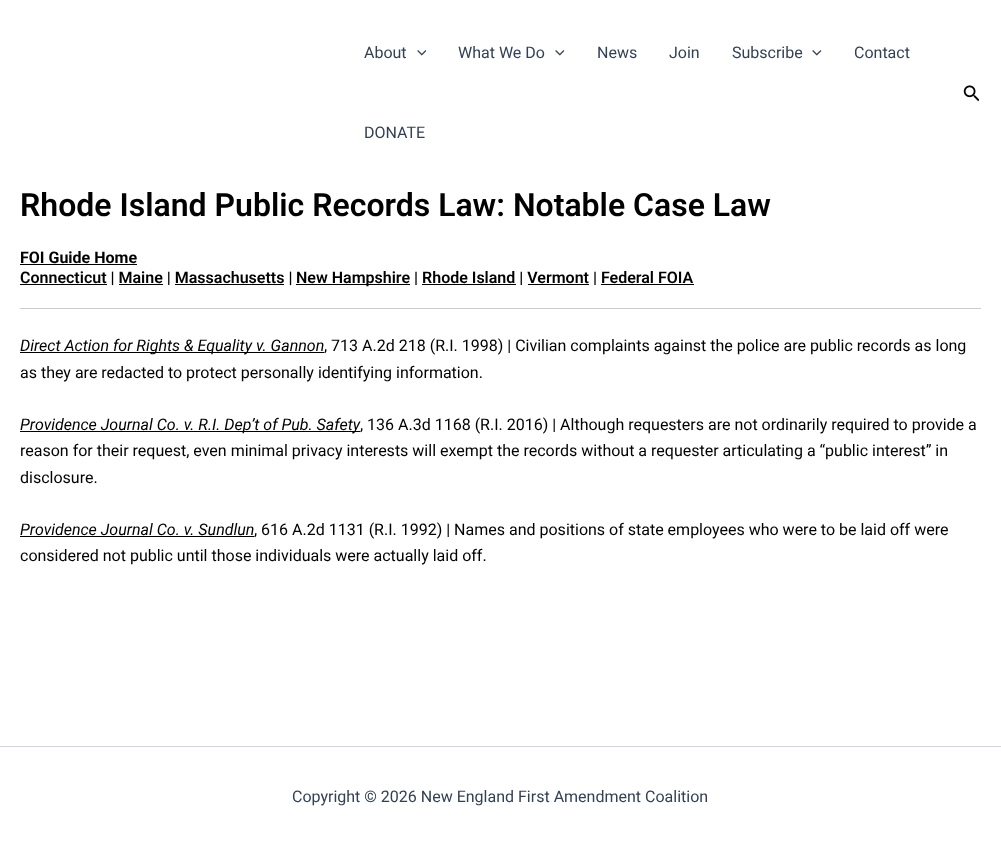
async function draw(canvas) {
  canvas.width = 1001
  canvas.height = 847
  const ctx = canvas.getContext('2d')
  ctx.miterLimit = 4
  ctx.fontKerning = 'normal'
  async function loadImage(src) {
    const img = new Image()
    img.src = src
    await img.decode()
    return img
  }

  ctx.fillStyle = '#fff'
  ctx.fillRect(0, 0, 1001, 847)
  ctx.font = '16px Roboto'
  ctx.fillStyle = '#334155'
  ctx.fillText('About', 364, 58)
  ctx.drawImage(await loadImage('image0.png'), 417, 50, 9, 6)
  ctx.fillText('What We Do', 458, 58)
  ctx.drawImage(await loadImage('image1.png'), 555, 50, 10, 6)
  ctx.fillText('News', 597, 58)
  ctx.fillText('Join', 669, 58)
  ctx.fillText('Subscribe', 732, 58)
  ctx.drawImage(await loadImage('image1.png'), 812, 50, 10, 6)
  ctx.fillText('Contact', 854, 58)
  ctx.fillText('DONATE', 364, 138)
  ctx.drawImage(await loadImage('image2.png'), 963, 85, 16, 17)
  ctx.font = '600 32px Roboto'
  ctx.fillStyle = '#010101'
  ctx.fillText('Rhode Island Public Records Law: Notable Case Law', 20, 216)
  ctx.font = 'bold 16px Roboto'
  ctx.fillText('FOI Guide Home', 20, 263)
  ctx.fillStyle = '#000'
  ctx.fillRect(20, 264, 117, 1)
  ctx.fillRect(20, 284, 87, 1)
  ctx.font = '600 16px Roboto'
  ctx.fillStyle = '#010101'
  ctx.fillText('Connecticut | Maine | Massachusetts |', 20, 283)
  ctx.fillStyle = '#000'
  ctx.fillRect(119, 284, 44, 1)
  ctx.fillRect(175, 284, 109, 1)
  ctx.fillRect(296, 284, 114, 1)
  ctx.fillStyle = '#010101'
  ctx.fillText('New Hampshire | Rhode Island | Vermont | Federal FOIA', 296, 283)
  ctx.fillStyle = '#000'
  ctx.fillRect(422, 284, 94, 1)
  ctx.fillRect(528, 284, 61, 1)
  ctx.fillRect(601, 284, 93, 1)
  ctx.fillStyle = '#ccc'
  ctx.fillRect(20, 308, 961, 1)
  ctx.fillStyle = '#000'
  ctx.fillRect(20, 352, 304, 1)
  ctx.font = 'italic 16px Roboto'
  ctx.fillStyle = '#010101'
  ctx.fillText('Direct Action for Rights & Equality v. Gannon', 20, 351)
  ctx.font = '16px Roboto'
  ctx.fillText(', 713 A.2d 218 (R.I. 1998) | Civilian complaints against the police are public records as long', 324, 351)
  ctx.fillText('as they are redacted to protect personally identifying information.', 20, 378)
  ctx.fillStyle = '#000'
  ctx.fillRect(20, 431, 340, 1)
  ctx.font = 'italic 16px Roboto'
  ctx.fillStyle = '#010101'
  ctx.fillText('Providence Journal Co. v. R.I. Dep’t of Pub. Safety', 20, 430)
  ctx.font = '16px Roboto'
  ctx.fillText(', 136 A.3d 1168 (R.I. 2016) | Although requesters are not ordinarily required to provide a', 360, 430)
  ctx.fillText('reason for their request, even minimal privacy interests will exempt the records without a requester articulating a “public interest” in', 20, 456)
  ctx.fillText('disclosure.', 20, 483)
  ctx.font = 'italic 16px Roboto'
  ctx.fillText('Providence Journal Co. v. Sundlun', 20, 535)
  ctx.font = '16px Roboto'
  ctx.fillText(', 616 A.2d 1131 (R.I. 1992) | Names and positions of state employees who were to be laid off were', 254, 535)
  ctx.fillStyle = '#000'
  ctx.fillRect(20, 536, 234, 1)
  ctx.fillStyle = '#010101'
  ctx.fillText('considered not public until those individuals were actually laid off.', 20, 561)
  ctx.fillStyle = '#d1d5db'
  ctx.fillRect(0, 746, 1001, 1)
  ctx.fillStyle = '#334155'
  ctx.fillText('Copyright © 2026 New England First Amendment Coalition', 292, 802)
}

draw(document.querySelector('canvas'))
